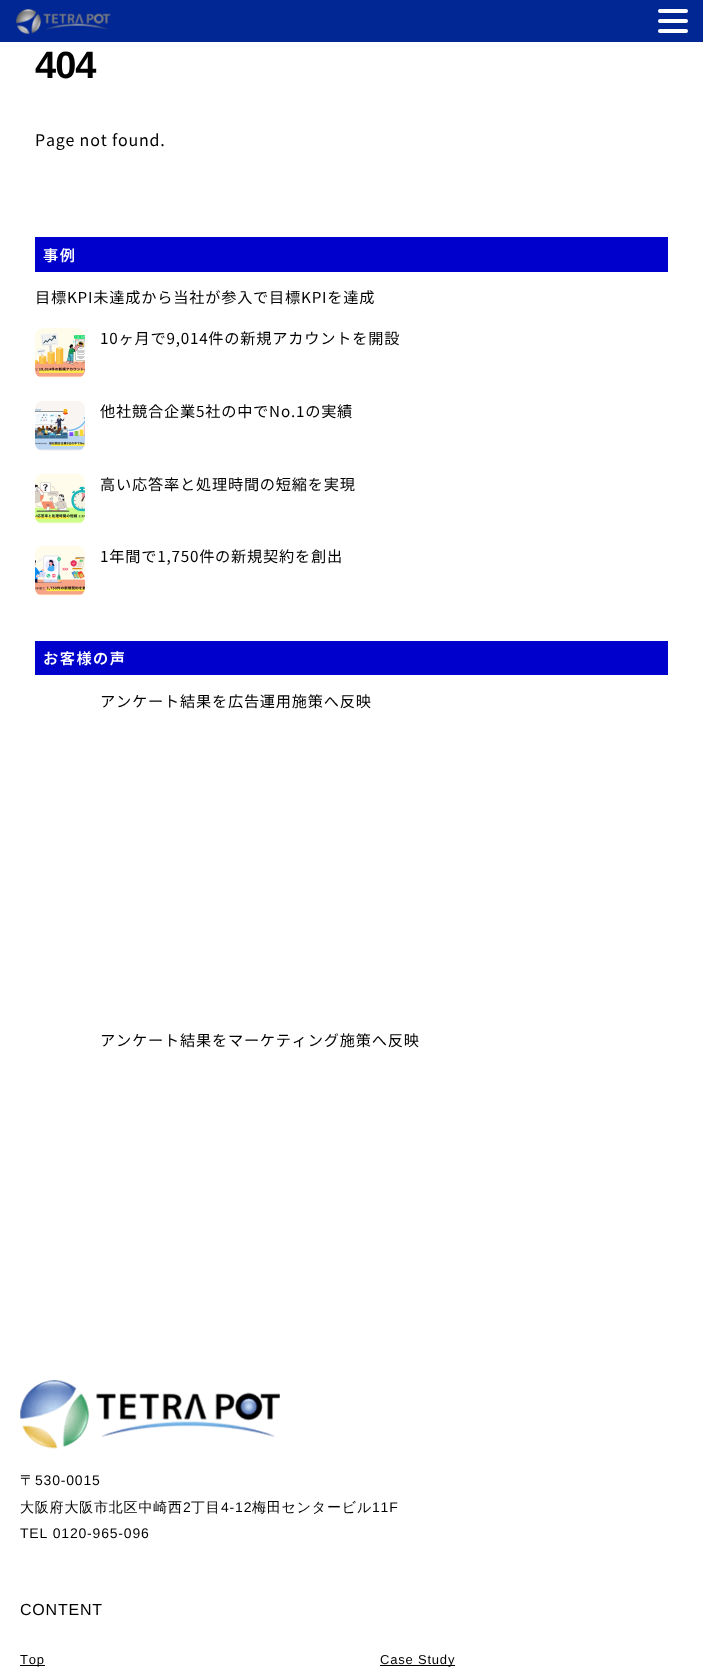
async function draw(canvas) {
  canvas.width = 703
  canvas.height = 1674
  const ctx = canvas.getContext('2d')
  ctx.miterLimit = 4
  ctx.fontKerning = 'none'
  async function loadImage(src) {
    const img = new Image()
    img.src = src
    await img.decode()
    return img
  }

  ctx.fillStyle = '#fff'
  ctx.fillRect(0, 0, 703, 1674)
  ctx.fillStyle = '#002793'
  ctx.fillRect(0, 0, 703, 42)
  ctx.drawImage(await loadImage('image0.png'), 16, 9, 95, 25)
  ctx.fillStyle = '#fff'
  ctx.beginPath()
  ctx.roundRect(658, 9, 30, 4, 2)
  ctx.fill()
  ctx.beginPath()
  ctx.roundRect(658, 19, 30, 4, 2)
  ctx.fill()
  ctx.beginPath()
  ctx.roundRect(658, 29, 30, 4, 2)
  ctx.fill()
  ctx.letterSpacing = '-1px'
  ctx.font = 'bold 38px Liberation Sans'
  ctx.fillStyle = '#000'
  ctx.fillText('404', 35, 78)
  ctx.letterSpacing = '0.8px'
  ctx.font = '16px Noto Sans JP'
  ctx.fillText('Page not found.', 35, 146)
  ctx.fillStyle = '#0000cd'
  ctx.fillRect(35, 237, 633, 35)
  ctx.letterSpacing = '1.5px'
  ctx.font = '600 15.2px Noto Sans JP'
  ctx.fillStyle = '#fff'
  ctx.fillText('事例', 43, 261)
  ctx.letterSpacing = '0.8px'
  ctx.font = '15.2px Noto Sans JP'
  ctx.fillStyle = '#000'
  ctx.fillText('目標KPI未達成から当社が参入で目標KPIを達成', 35, 303)
  ctx.drawImage(await loadImage('image1.png'), 35, 328, 50, 50)
  ctx.fillText('10ヶ月で9,014件の新規アカウントを開設', 100, 344)
  ctx.drawImage(await loadImage('image2.png'), 35, 401, 50, 50)
  ctx.fillText('他社競合企業5社の中でNo.1の実績', 100, 417)
  ctx.drawImage(await loadImage('image3.png'), 35, 474, 50, 50)
  ctx.fillText('高い応答率と処理時間の短縮を実現', 100, 490)
  ctx.drawImage(await loadImage('image4.png'), 35, 546, 50, 50)
  ctx.fillText('1年間で1,750件の新規契約を創出', 100, 562)
  ctx.fillStyle = '#0000cd'
  ctx.fillRect(35, 641, 633, 34)
  ctx.letterSpacing = '1.5px'
  ctx.font = '600 15.2px Noto Sans JP'
  ctx.fillStyle = '#fff'
  ctx.fillText('お客様の声', 43, 664)
  ctx.letterSpacing = '0.8px'
  ctx.font = '15.2px Noto Sans JP'
  ctx.fillStyle = '#000'
  ctx.fillText('アンケート結果を広告運用施策へ反映', 100, 707)
  ctx.fillText('アンケート結果をマーケティング施策へ反映', 100, 1046)
  ctx.drawImage(await loadImage('image5.png'), 20, 1380, 260, 69)
  ctx.font = '500 14px WenQuanYi Zen Hei'
  ctx.fillText('〒', 20, 1485)
  ctx.font = '14px Liberation Sans'
  ctx.fillText('530-0015', 35, 1485)
  ctx.font = '500 14px WenQuanYi Zen Hei'
  ctx.fillText('大阪府大阪市北区中崎西', 20, 1512)
  ctx.font = '14px Liberation Sans'
  ctx.fillText('2', 183, 1512)
  ctx.font = '500 14px WenQuanYi Zen Hei'
  ctx.fillText('丁目', 191, 1512)
  ctx.font = '14px Liberation Sans'
  ctx.fillText('4-12', 221, 1512)
  ctx.font = '500 14px WenQuanYi Zen Hei'
  ctx.fillText('梅田センタービル', 252, 1512)
  ctx.font = '14px Liberation Sans'
  ctx.fillText('11F', 372, 1512)
  ctx.fillText('TEL 0120-965-096', 20, 1538)
  ctx.font = '16px Liberation Sans'
  ctx.fillText('CONTENT', 20, 1615)
  ctx.fillRect(20, 1665, 25, 1)
  ctx.font = '13px Liberation Sans'
  ctx.fillText('Top', 20, 1664)
  ctx.fillRect(380, 1665, 75, 1)
  ctx.fillText('Case Study', 380, 1664)
}

draw(document.querySelector('canvas'))
